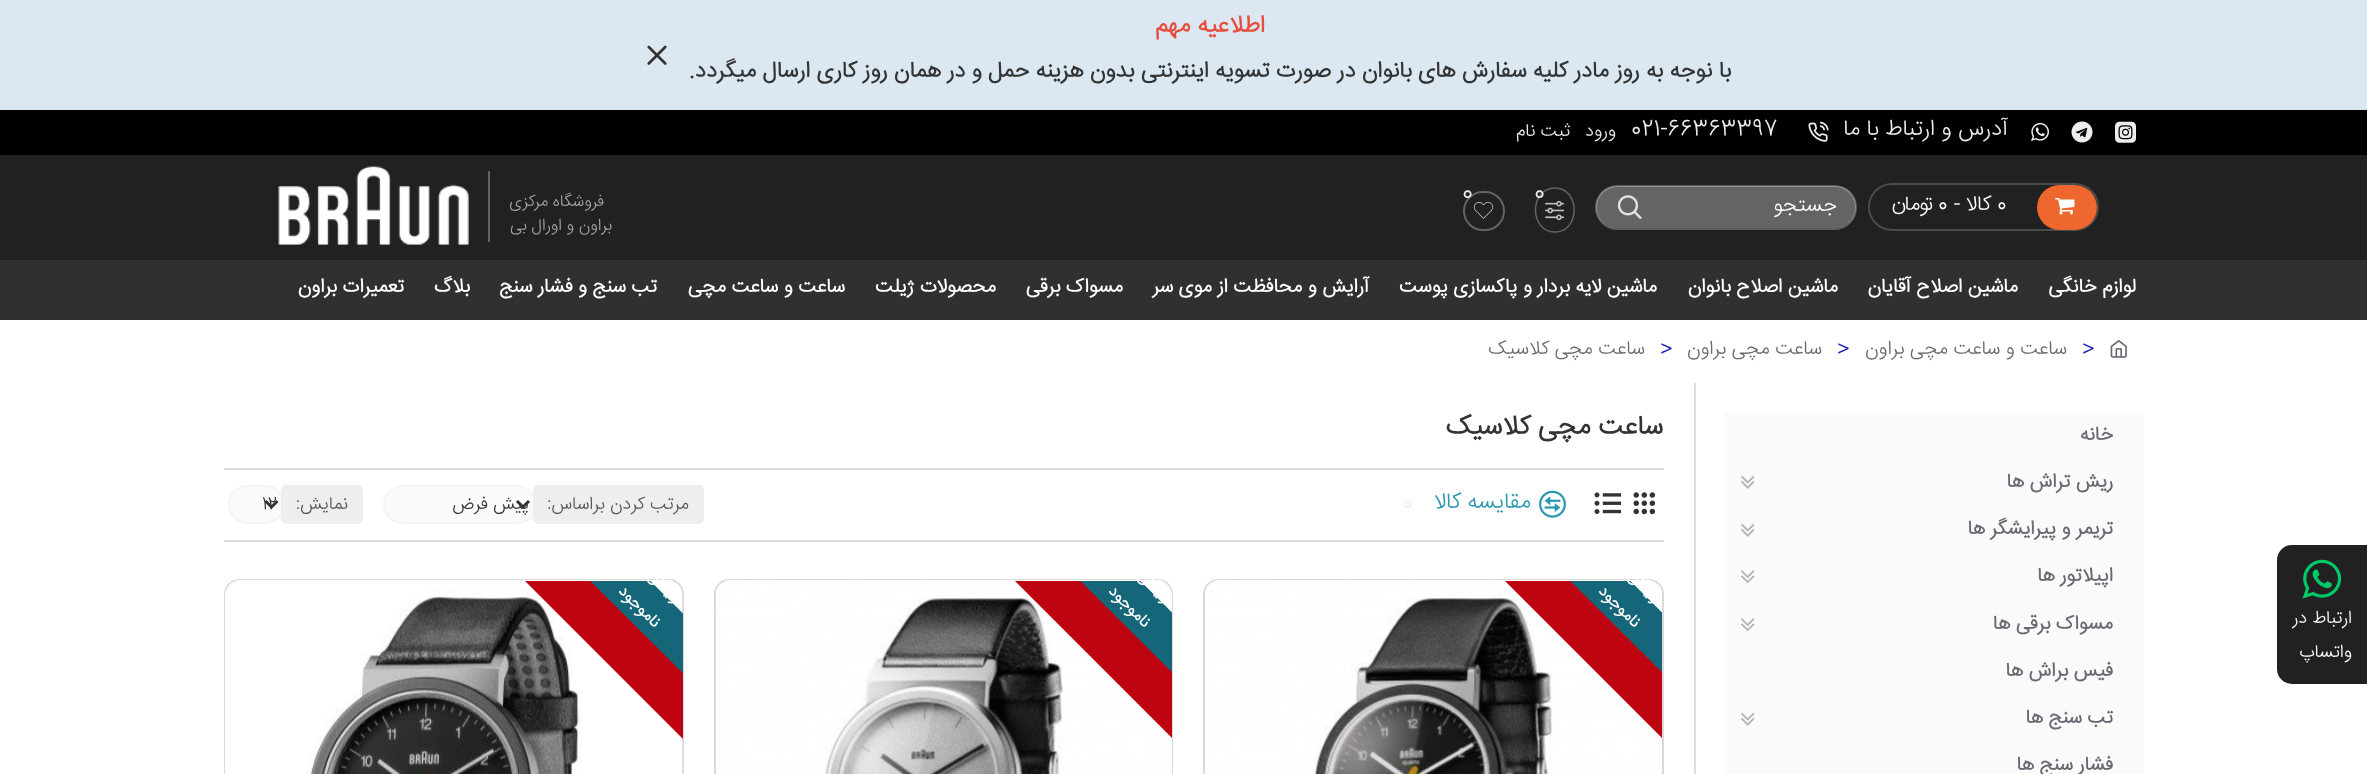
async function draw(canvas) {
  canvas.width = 2367
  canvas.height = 774
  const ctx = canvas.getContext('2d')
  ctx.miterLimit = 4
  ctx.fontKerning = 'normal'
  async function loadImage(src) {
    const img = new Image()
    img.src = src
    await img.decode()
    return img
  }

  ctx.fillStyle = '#fff'
  ctx.fillRect(0, 0, 2367, 774)
  ctx.fillStyle = '#212121'
  ctx.beginPath()
  ctx.roundRect(2277, 545, 90, 139, [15, 0, 0, 15])
  ctx.fill()
  ctx.drawImage(await loadImage('image0.png'), 2302, 559, 40, 40)
  ctx.direction = 'rtl'
  ctx.font = '300 18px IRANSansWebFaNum'
  ctx.fillStyle = '#fff'
  ctx.fillText('ارتباط در', 2352, 623)
  ctx.fillText('واتساپ', 2352, 657)
  ctx.fillStyle = '#dbe8f2'
  ctx.fillRect(0, 0, 2367, 110)
  ctx.font = 'bold 24px IRANSansWebFaNum'
  ctx.fillStyle = '#e74c3c'
  ctx.fillText('اطلاعیه مهم', 1265, 32)
  ctx.font = 'bold 22.5px IRANSansWebFaNum'
  ctx.fillStyle = '#333'
  ctx.fillText('با نوجه به روز مادر کلیه سفارش های بانوان در صورت تسویه اینترنتی بدون هزینه حمل و در همان روز کاری ارسال میگردد.', 1731, 77)
  ctx.drawImage(await loadImage('image1.png'), 647, 45, 20, 20)
  ctx.fillStyle = '#212121'
  ctx.fillRect(0, 155, 2367, 105)
  ctx.fillStyle = '#000'
  ctx.fillRect(0, 110, 2367, 45)
  ctx.drawImage(await loadImage('image2.png'), 2115, 121, 21, 22)
  ctx.drawImage(await loadImage('image3.png'), 2071, 121, 22, 22)
  ctx.drawImage(await loadImage('image4.png'), 2031, 122, 18, 19)
  ctx.font = '300 22.5px IRANSansWebFaNum'
  ctx.fillStyle = '#eee'
  ctx.fillText('آدرس و ارتباط با ما', 2008, 135)
  ctx.drawImage(await loadImage('image5.png'), 1808, 121, 21, 21)
  ctx.direction = 'ltr'
  ctx.fillText('021-66363397', 1631, 135)
  ctx.direction = 'rtl'
  ctx.font = '300 18px IRANSansWebFaNum'
  ctx.fillText('ورود', 1616, 136)
  ctx.fillText('ثبت نام', 1570, 136)
  ctx.beginPath()
  ctx.roundRect(1869, 184, 229, 46, 23)
  ctx.strokeStyle = '#4b4b4b'
  ctx.lineWidth = 2
  ctx.stroke()
  ctx.fillStyle = '#ee672f'
  ctx.beginPath()
  ctx.roundRect(2037, 185, 60, 45, 22.5)
  ctx.fill()
  ctx.drawImage(await loadImage('image6.png'), 2055, 198, 20, 17)
  ctx.direction = 'ltr'
  ctx.font = '300 21px IRANSansWebFaNum'
  ctx.fillStyle = '#fff'
  ctx.fillText('0', 1997, 210)
  ctx.direction = 'rtl'
  ctx.fillText('کالا -', 1991, 210)
  ctx.direction = 'ltr'
  ctx.fillText('0', 1938, 210)
  ctx.direction = 'rtl'
  ctx.fillText('تومان', 1933, 210)
  ctx.beginPath()
  ctx.roundRect(1596, 186, 260, 43, 21.5)
  ctx.strokeStyle = '#5e5e5e'
  ctx.stroke()
  ctx.fillStyle = '#ffffff4d'
  ctx.beginPath()
  ctx.roundRect(1664, 186, 192, 42, [0, 21, 21, 0])
  ctx.fill()
  ctx.fillStyle = '#fff'
  ctx.fillText('جستجو', 1837, 211)
  ctx.fillStyle = '#ffffff4d'
  ctx.beginPath()
  ctx.roundRect(1596, 186, 68, 42, [21, 0, 0, 21])
  ctx.fill()
  ctx.drawImage(await loadImage('image7.png'), 1617, 195, 25, 24)
  ctx.beginPath()
  ctx.moveTo(1555, 188)
  ctx.bezierCurveTo(1580.5, 188, 1580.5, 232, 1555, 232)
  ctx.bezierCurveTo(1529, 232, 1529, 188, 1555, 188)
  ctx.closePath()
  ctx.strokeStyle = '#646464'
  ctx.lineWidth = 1.5
  ctx.stroke()
  ctx.drawImage(await loadImage('image8.png'), 1545, 200, 20, 21)
  ctx.direction = 'ltr'
  ctx.font = '300 24px IRANSansWebFaNum'
  ctx.fillStyle = '#eee'
  ctx.fillText('0', 1534, 199)
  ctx.beginPath()
  ctx.roundRect(1464, 192, 40, 38, 19)
  ctx.lineWidth = 2
  ctx.stroke()
  ctx.fillText('0', 1462, 199)
  ctx.drawImage(await loadImage('image9.png'), 1473, 202, 21, 17)
  ctx.fillStyle = '#646464'
  ctx.fillRect(488, 171, 2, 71)
  ctx.direction = 'rtl'
  ctx.font = '300 16.5px IRANSansWebFaNum'
  ctx.fillStyle = '#a4a2a4'
  ctx.fillText('فروشگاه مرکزی', 604, 206)
  ctx.fillText('براون و اورال بی', 612, 230)
  ctx.drawImage(await loadImage('image10.png'), 278, 166, 191, 79)
  ctx.fillStyle = '#303030'
  ctx.fillRect(0, 260, 2367, 60)
  ctx.font = 'bold 19.5px IRANSansWebFaNum'
  ctx.fillStyle = '#fff'
  ctx.fillText('لوازم خانگی', 2136, 292)
  ctx.fillText('ماشین اصلاح آقایان', 2018, 292)
  ctx.fillText('ماشین اصلاح بانوان', 1838, 292)
  ctx.fillText('ماشین لایه بردار و پاکسازی پوست', 1657, 292)
  ctx.fillText('آرایش و محافظت از موی سر', 1369, 292)
  ctx.fillText('مسواک برقی', 1123, 292)
  ctx.fillText('محصولات ژیلت', 996, 292)
  ctx.fillText('ساعت و ساعت مچی', 845, 292)
  ctx.fillText('تب سنج و فشار سنج', 657, 292)
  ctx.fillText('بلاگ', 470, 292)
  ctx.fillText('تعمیرات براون', 404, 292)
  ctx.drawImage(await loadImage('image11.png'), 2110, 340, 17, 18)
  ctx.direction = 'ltr'
  ctx.font = '300 22.5px IRANSansWebFaNum'
  ctx.fillStyle = '#1616b9'
  ctx.fillText('>', 2082, 355)
  ctx.direction = 'rtl'
  ctx.font = '300 19.5px IRANSansWebFaNum'
  ctx.fillStyle = '#696973'
  ctx.fillText('ساعت و ساعت مچی براون', 2067, 354)
  ctx.direction = 'ltr'
  ctx.font = '300 22.5px IRANSansWebFaNum'
  ctx.fillStyle = '#1616b9'
  ctx.fillText('>', 1837, 355)
  ctx.direction = 'rtl'
  ctx.font = '300 19.5px IRANSansWebFaNum'
  ctx.fillStyle = '#696973'
  ctx.fillText('ساعت مچی براون', 1822, 354)
  ctx.direction = 'ltr'
  ctx.font = '300 22.5px IRANSansWebFaNum'
  ctx.fillStyle = '#1616b9'
  ctx.fillText('>', 1660, 355)
  ctx.direction = 'rtl'
  ctx.font = '300 19.5px IRANSansWebFaNum'
  ctx.fillStyle = '#696973'
  ctx.fillText('ساعت مچی کلاسیک', 1645, 354)
  ctx.fillStyle = '#ddd'
  ctx.fillRect(1694, 383, 2, 391)
  ctx.fillStyle = '#fafafa'
  ctx.fillRect(1725, 413, 419, 361)
  ctx.font = 'bold 19.5px IRANSansWebFaNum'
  ctx.fillStyle = '#696973'
  ctx.fillText('خانه', 2113, 440)
  ctx.fillText('ریش تراش ها', 2113, 487)
  ctx.drawImage(await loadImage('image12.png'), 1741, 475, 14, 14)
  ctx.fillText('تریمر و پیرایشگر ها', 2113, 534)
  ctx.drawImage(await loadImage('image12.png'), 1741, 523, 14, 14)
  ctx.fillText('اپیلاتور ها', 2113, 581)
  ctx.drawImage(await loadImage('image13.png'), 1741, 570, 14, 14)
  ctx.fillText('مسواک برقی ها', 2113, 629)
  ctx.drawImage(await loadImage('image13.png'), 1741, 618, 14, 14)
  ctx.fillText('فیس براش ها', 2113, 676)
  ctx.fillText('تب سنج ها', 2113, 723)
  ctx.drawImage(await loadImage('image12.png'), 1741, 712, 14, 14)
  ctx.fillText('فشار سنج ها', 2113, 770)
  ctx.font = 'bold 27px IRANSansWebFaNum'
  ctx.fillStyle = '#333'
  ctx.fillText('ساعت مچی کلاسیک', 1663, 434)
  ctx.fillStyle = '#ddd'
  ctx.fillRect(224, 468, 1440, 2)
  ctx.fillRect(224, 540, 1440, 2)
  ctx.drawImage(await loadImage('image14.png'), 1633, 492, 23, 23)
  ctx.drawImage(await loadImage('image15.png'), 1594, 492, 28, 22)
  ctx.drawImage(await loadImage('image16.png'), 1539, 490, 27, 28)
  ctx.font = '300 22.5px IRANSansWebFaNum'
  ctx.fillStyle = '#2a98b0'
  ctx.fillText('مقایسه کالا', 1531, 508)
  ctx.direction = 'ltr'
  ctx.font = '300 24px IRANSansWebFaNum'
  ctx.fillStyle = '#eee'
  ctx.fillText('0', 1402, 509)
  ctx.fillStyle = '#fafafa'
  ctx.beginPath()
  ctx.roundRect(384, 486, 152, 37, 18.5)
  ctx.fill()
  ctx.strokeStyle = '#f4f4f4'
  ctx.stroke()
  ctx.fillStyle = '#eee'
  ctx.beginPath()
  ctx.roundRect(533, 485, 171, 39, 5)
  ctx.fill()
  ctx.direction = 'rtl'
  ctx.font = '300 18px IRANSansWebFaNum'
  ctx.fillStyle = '#555'
  ctx.fillText('مرتب کردن براساس:', 689, 509)
  ctx.beginPath()
  ctx.moveTo(517, 501)
  ctx.lineTo(523, 507)
  ctx.lineTo(529, 501)
  ctx.strokeStyle = '#333'
  ctx.lineWidth = 3
  ctx.stroke()
  ctx.fillStyle = '#333'
  ctx.fillText('پیش فرض', 529, 509)
  ctx.fillStyle = '#fafafa'
  ctx.beginPath()
  ctx.roundRect(229, 486, 55, 37, 18.5)
  ctx.fill()
  ctx.strokeStyle = '#f4f4f4'
  ctx.lineWidth = 2
  ctx.stroke()
  ctx.fillStyle = '#eee'
  ctx.beginPath()
  ctx.roundRect(281, 485, 82, 39, 5)
  ctx.fill()
  ctx.fillStyle = '#555'
  ctx.fillText('نمایش:', 348, 509)
  ctx.beginPath()
  ctx.moveTo(265.5, 501)
  ctx.lineTo(271.5, 507)
  ctx.lineTo(277.5, 501)
  ctx.strokeStyle = '#333'
  ctx.lineWidth = 3
  ctx.stroke()
  ctx.direction = 'ltr'
  ctx.fillStyle = '#333'
  ctx.fillText('12', 262, 509)
  ctx.beginPath()
  ctx.roundRect(1204, 580, 459, 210, 14)
  ctx.strokeStyle = '#dadada'
  ctx.lineWidth = 2
  ctx.stroke()
  ctx.drawImage(await loadImage('image17.png'), 1205, 580, 457, 194)
  ctx.save()
  ctx.beginPath()
  ctx.rect(1205, 581, 457, 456)
  ctx.clip()
  ctx.fillStyle = '#146678'
  ctx.beginPath()
  ctx.moveTo(1489, 440)
  ctx.lineTo(1808, 758)
  ctx.lineTo(1775, 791)
  ctx.lineTo(1456, 472)
  ctx.closePath()
  ctx.fill()
  ctx.restore()
  ctx.direction = 'rtl'
  ctx.font = 'bold 16.5px IRANSansWebFaNum'
  ctx.fillStyle = '#fff'
  ctx.save()
  ctx.translate(1655, 603)
  ctx.rotate(45 * Math.PI / 180)
  ctx.fillText('رایگان', 0, 0)
  ctx.restore()
  ctx.save()
  ctx.beginPath()
  ctx.rect(1205, 581, 457, 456)
  ctx.clip()
  ctx.fillStyle = '#bd0410'
  ctx.beginPath()
  ctx.moveTo(1459, 470)
  ctx.lineTo(1778, 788)
  ctx.lineTo(1745, 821)
  ctx.lineTo(1426, 502)
  ctx.closePath()
  ctx.fill()
  ctx.restore()
  ctx.save()
  ctx.translate(1634, 628)
  ctx.rotate(45 * Math.PI / 180)
  ctx.fillText('ناموجود', 0, 0)
  ctx.restore()
  ctx.beginPath()
  ctx.roundRect(715, 580, 457, 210, 14)
  ctx.stroke()
  ctx.drawImage(await loadImage('image18.png'), 716, 580, 456, 194)
  ctx.save()
  ctx.beginPath()
  ctx.rect(716, 581, 456, 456)
  ctx.clip()
  ctx.fillStyle = '#146678'
  ctx.beginPath()
  ctx.moveTo(999, 440)
  ctx.lineTo(1318, 758)
  ctx.lineTo(1285, 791)
  ctx.lineTo(966, 472)
  ctx.closePath()
  ctx.fill()
  ctx.restore()
  ctx.save()
  ctx.translate(1165, 603)
  ctx.rotate(45 * Math.PI / 180)
  ctx.fillText('رایگان', 0, 0)
  ctx.restore()
  ctx.save()
  ctx.beginPath()
  ctx.rect(716, 581, 456, 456)
  ctx.clip()
  ctx.fillStyle = '#bd0410'
  ctx.beginPath()
  ctx.moveTo(969, 470)
  ctx.lineTo(1288, 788)
  ctx.lineTo(1255, 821)
  ctx.lineTo(936, 502)
  ctx.closePath()
  ctx.fill()
  ctx.restore()
  ctx.save()
  ctx.translate(1144, 628)
  ctx.rotate(45 * Math.PI / 180)
  ctx.fillText('ناموجود', 0, 0)
  ctx.restore()
  ctx.beginPath()
  ctx.roundRect(225, 580, 458, 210, 14)
  ctx.stroke()
  ctx.drawImage(await loadImage('image19.png'), 225, 580, 458, 194)
  ctx.save()
  ctx.beginPath()
  ctx.rect(225, 581, 458, 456)
  ctx.clip()
  ctx.fillStyle = '#146678'
  ctx.beginPath()
  ctx.moveTo(509, 440)
  ctx.lineTo(828, 758)
  ctx.lineTo(795, 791)
  ctx.lineTo(476, 472)
  ctx.closePath()
  ctx.fill()
  ctx.restore()
  ctx.save()
  ctx.translate(675, 603)
  ctx.rotate(45 * Math.PI / 180)
  ctx.fillText('رایگان', 0, 0)
  ctx.restore()
  ctx.save()
  ctx.beginPath()
  ctx.rect(225, 581, 458, 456)
  ctx.clip()
  ctx.fillStyle = '#bd0410'
  ctx.beginPath()
  ctx.moveTo(479, 470)
  ctx.lineTo(798, 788)
  ctx.lineTo(765, 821)
  ctx.lineTo(446, 502)
  ctx.closePath()
  ctx.fill()
  ctx.restore()
  ctx.save()
  ctx.translate(654, 628)
  ctx.rotate(45 * Math.PI / 180)
  ctx.fillText('ناموجود', 0, 0)
  ctx.restore()
}

draw(document.querySelector('canvas'))
